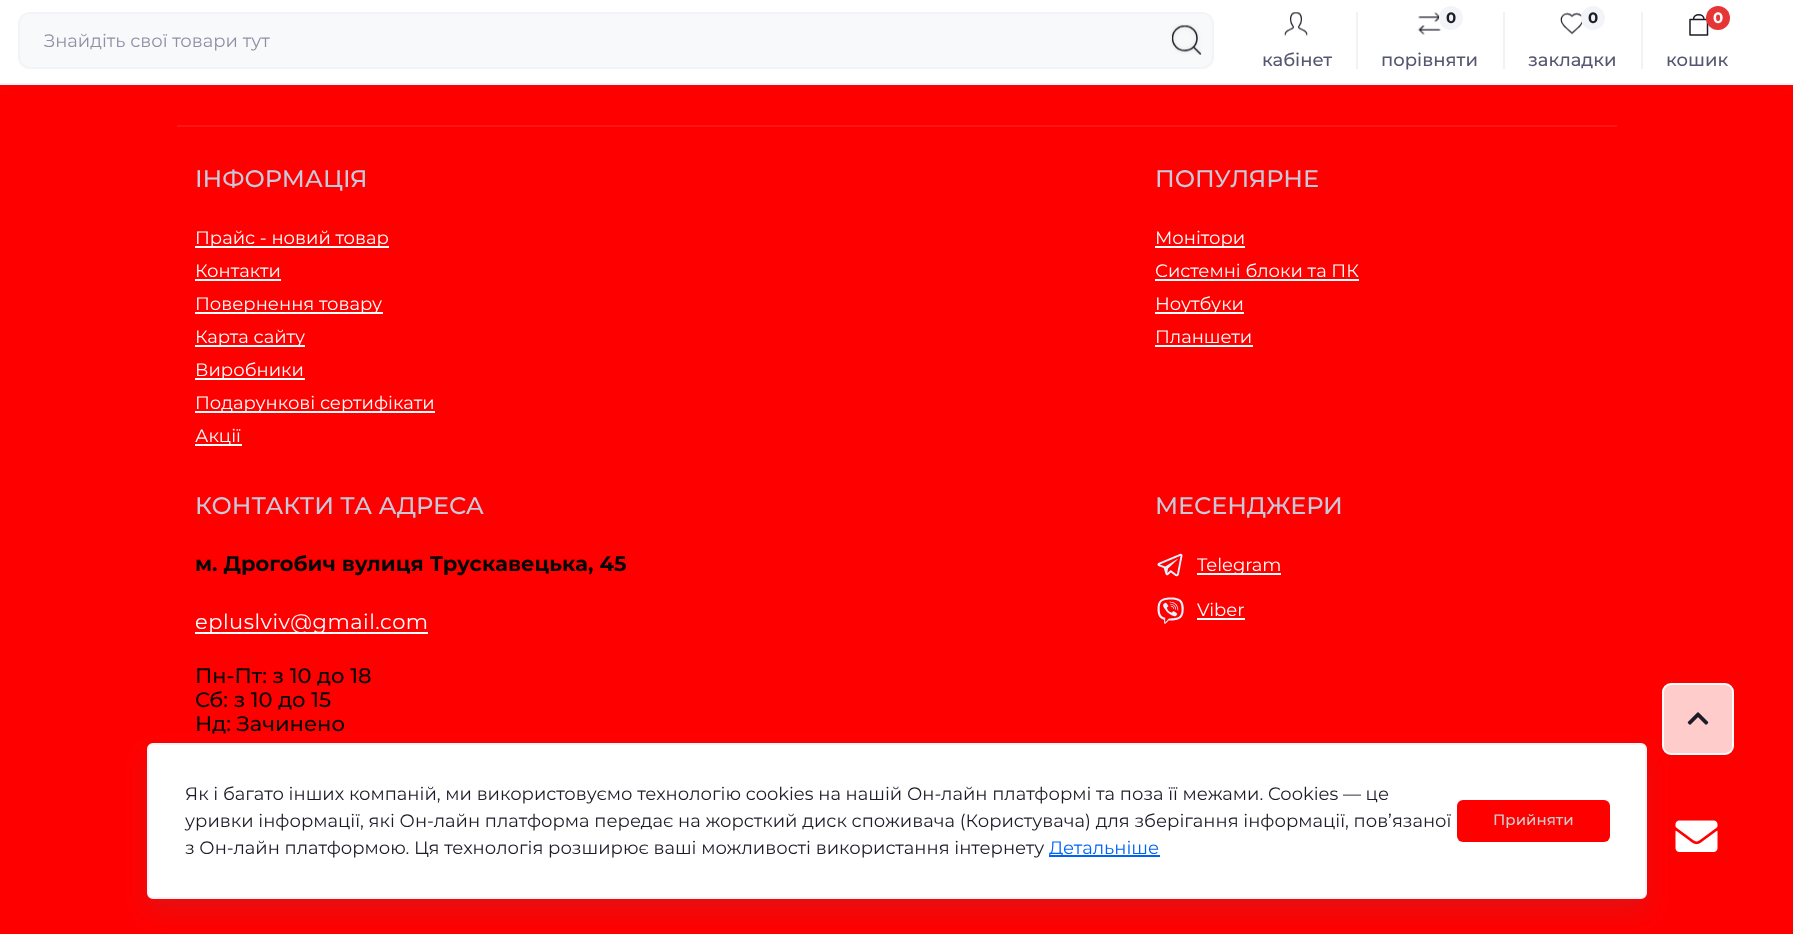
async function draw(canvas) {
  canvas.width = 1793
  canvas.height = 934
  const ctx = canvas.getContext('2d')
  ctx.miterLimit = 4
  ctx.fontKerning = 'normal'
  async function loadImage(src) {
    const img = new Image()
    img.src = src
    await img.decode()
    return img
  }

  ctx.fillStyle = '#f00'
  ctx.fillRect(0, 0, 1793, 934)
  ctx.fillStyle = '#60617029'
  ctx.filter = 'blur(6px)'
  ctx.beginPath()
  ctx.rect(0, -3, 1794, 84)
  ctx.fill()
  ctx.filter = 'none'
  ctx.fillStyle = '#fff'
  ctx.fillRect(0, 0, 1793, 83)
  ctx.fillStyle = '#f2f4f8'
  ctx.fillRect(0, 83, 1793, 2)
  ctx.fillStyle = '#f8f9fa'
  ctx.beginPath()
  ctx.roundRect(19, 13, 1194, 55, 11)
  ctx.fill()
  ctx.strokeStyle = '#f2f4f8'
  ctx.lineWidth = 2
  ctx.stroke()
  ctx.font = '18px Montserrat'
  ctx.fillStyle = '#8f90a6'
  ctx.fillText('Знайдіть свої товари тут', 44, 47)
  ctx.drawImage(await loadImage('image0.png'), 1170, 24, 32, 31)
  ctx.drawImage(await loadImage('image1.png'), 1284, 12, 24, 24)
  ctx.font = '500 18px Montserrat'
  ctx.fillStyle = '#555770'
  ctx.fillText('кабінет', 1262, 66)
  ctx.fillStyle = '#f2f2f5'
  ctx.fillRect(1356, 12, 2, 57)
  ctx.drawImage(await loadImage('image2.png'), 1418, 12, 23, 23)
  ctx.fillStyle = '#f2f4f8'
  ctx.beginPath()
  ctx.arc(1451, 18, 12, 0, 2 * Math.PI)
  ctx.fill()
  ctx.font = 'bold 15px Montserrat'
  ctx.fillStyle = '#1c1c28'
  ctx.fillText('0', 1446, 23)
  ctx.font = '500 18px Montserrat'
  ctx.fillStyle = '#555770'
  ctx.fillText('порівняти', 1381, 66)
  ctx.fillStyle = '#f2f2f5'
  ctx.fillRect(1503, 12, 2, 57)
  ctx.drawImage(await loadImage('image3.png'), 1560, 12, 23, 23)
  ctx.fillStyle = '#f2f4f8'
  ctx.beginPath()
  ctx.arc(1593, 18, 12, 0, 2 * Math.PI)
  ctx.fill()
  ctx.font = 'bold 15px Montserrat'
  ctx.fillStyle = '#1c1c28'
  ctx.fillText('0', 1588, 23)
  ctx.font = '500 18px Montserrat'
  ctx.fillStyle = '#555770'
  ctx.fillText('закладки', 1528, 66)
  ctx.fillStyle = '#f2f2f5'
  ctx.fillRect(1641, 12, 2, 57)
  ctx.beginPath()
  ctx.moveTo(1690, 19.5)
  ctx.lineTo(1707.5, 19.5)
  ctx.lineTo(1707.5, 35)
  ctx.lineTo(1690, 35)
  ctx.closePath()
  ctx.moveTo(1693.5, 19.5)
  ctx.bezierCurveTo(1693.5, 13, 1704, 13, 1704, 19.5)
  ctx.strokeStyle = '#1c1c28'
  ctx.lineWidth = 1.5
  ctx.lineCap = 'round'
  ctx.lineJoin = 'round'
  ctx.stroke()
  ctx.fillStyle = '#e53535'
  ctx.beginPath()
  ctx.arc(1718, 18, 12, 0, 2 * Math.PI)
  ctx.fill()
  ctx.font = 'bold 15px Montserrat'
  ctx.fillStyle = '#fdfdfd'
  ctx.fillText('0', 1713, 23)
  ctx.font = '500 18px Montserrat'
  ctx.fillStyle = '#555770'
  ctx.fillText('кошик', 1666, 66)
  ctx.fillStyle = '#ff1414'
  ctx.fillRect(177, 125, 1440, 2)
  ctx.font = '500 24px Montserrat'
  ctx.fillStyle = '#c7c9d9'
  ctx.fillText('ІНФОРМАЦІЯ', 195, 187)
  ctx.fillStyle = '#fdfdfd'
  ctx.fillRect(195, 246, 194, 2)
  ctx.font = '18px Montserrat'
  ctx.fillText('Прайс - новий товар', 195, 244)
  ctx.fillText('Контакти', 195, 277)
  ctx.fillRect(195, 279, 86, 2)
  ctx.fillRect(195, 312, 188, 2)
  ctx.fillText('Повернення товару', 195, 310)
  ctx.fillRect(195, 345, 110, 2)
  ctx.fillText('Карта сайту', 195, 343)
  ctx.fillRect(195, 378, 110, 2)
  ctx.fillText('Виробники', 195, 376)
  ctx.fillRect(195, 411, 240, 2)
  ctx.fillText('Подарункові сертифікати', 195, 409)
  ctx.fillRect(195, 444, 47, 2)
  ctx.fillText('Акції', 195, 442)
  ctx.font = '500 24px Montserrat'
  ctx.fillStyle = '#c7c9d9'
  ctx.fillText('ПОПУЛЯРНЕ', 1155, 187)
  ctx.fillStyle = '#fdfdfd'
  ctx.fillRect(1155, 246, 90, 2)
  ctx.font = '18px Montserrat'
  ctx.fillText('Монітори', 1155, 244)
  ctx.fillText('Системні блоки та ПК', 1155, 277)
  ctx.fillRect(1155, 279, 204, 2)
  ctx.fillRect(1155, 312, 89, 2)
  ctx.fillText('Ноутбуки', 1155, 310)
  ctx.fillText('Планшети', 1155, 343)
  ctx.fillRect(1155, 345, 98, 2)
  ctx.font = '500 24px Montserrat'
  ctx.fillStyle = '#c7c9d9'
  ctx.fillText('КОНТАКТИ ТА АДРЕСА', 195, 514)
  ctx.font = 'bold 21px Montserrat'
  ctx.fillStyle = '#070606'
  ctx.fillText('м. Дрогобич вулиця Трускавецька, 45', 195, 571)
  ctx.fillStyle = '#fdfdfd'
  ctx.fillRect(195, 632, 233, 2)
  ctx.letterSpacing = '0.5px'
  ctx.font = '21px Montserrat'
  ctx.fillText('epluslviv@gmail.com', 195, 629)
  ctx.letterSpacing = '0px'
  ctx.font = '500 21px Montserrat'
  ctx.fillStyle = '#070606'
  ctx.fillText('Пн-Пт: з 10 до 18', 195, 683)
  ctx.fillText('Сб: з 10 до 15', 195, 707)
  ctx.fillText('Нд: Зачинено', 195, 731)
  ctx.font = '500 24px Montserrat'
  ctx.fillStyle = '#c7c9d9'
  ctx.fillText('МЕСЕНДЖЕРИ', 1155, 514)
  ctx.drawImage(await loadImage('image4.png'), 1157, 553, 26, 24)
  ctx.fillStyle = '#fdfdfd'
  ctx.fillRect(1197, 573, 84, 2)
  ctx.font = '18px Montserrat'
  ctx.fillText('Telegram', 1197, 571)
  ctx.drawImage(await loadImage('image5.png'), 1157, 597, 27, 27)
  ctx.fillText('Viber', 1197, 616)
  ctx.fillRect(1197, 618, 48, 2)
  ctx.drawImage(await loadImage('image6.png'), 1675, 820, 43, 32)
  ctx.fillStyle = '#fcc'
  ctx.beginPath()
  ctx.roundRect(1663, 684, 70, 70, 8)
  ctx.fill()
  ctx.strokeStyle = '#fbfbfb'
  ctx.lineWidth = 2
  ctx.lineJoin = 'miter'
  ctx.stroke()
  ctx.drawImage(await loadImage('image7.png'), 1687, 712, 22, 13)
  ctx.fillStyle = '#60617029'
  ctx.filter = 'blur(12px)'
  ctx.beginPath()
  ctx.roundRect(147, 755, 1500, 156, 6)
  ctx.fill()
  ctx.filter = 'none'
  ctx.fillStyle = '#fff'
  ctx.beginPath()
  ctx.roundRect(148, 744, 1498, 154, 5)
  ctx.fill()
  ctx.strokeStyle = '#f2f4f8'
  ctx.stroke()
  ctx.fillStyle = '#1c1c28'
  ctx.fillText('Як і багато інших компаній, ми використовуємо технологію cookies на нашій Он-лайн платформі та поза її межами. Cookies — це', 185, 800)
  ctx.fillText('уривки інформації, які Он-лайн платформа передає на жорсткий диск споживача (Користувача) для зберігання інформації, пов’язаної', 185, 827)
  ctx.fillText('з Он-лайн платформою. Ця технологія розширює ваші можливості використання інтернету', 185, 854)
  ctx.fillStyle = '#0063f7'
  ctx.fillRect(1049, 855, 111, 2)
  ctx.fillText('Детальніше', 1049, 854)
  ctx.fillStyle = '#f00'
  ctx.beginPath()
  ctx.roundRect(1457, 800, 153, 42, 6)
  ctx.fill()
  ctx.font = '500 15px Montserrat'
  ctx.fillStyle = '#d2cece'
  ctx.fillText('Прийняти', 1493, 825)
}

draw(document.querySelector('canvas'))
